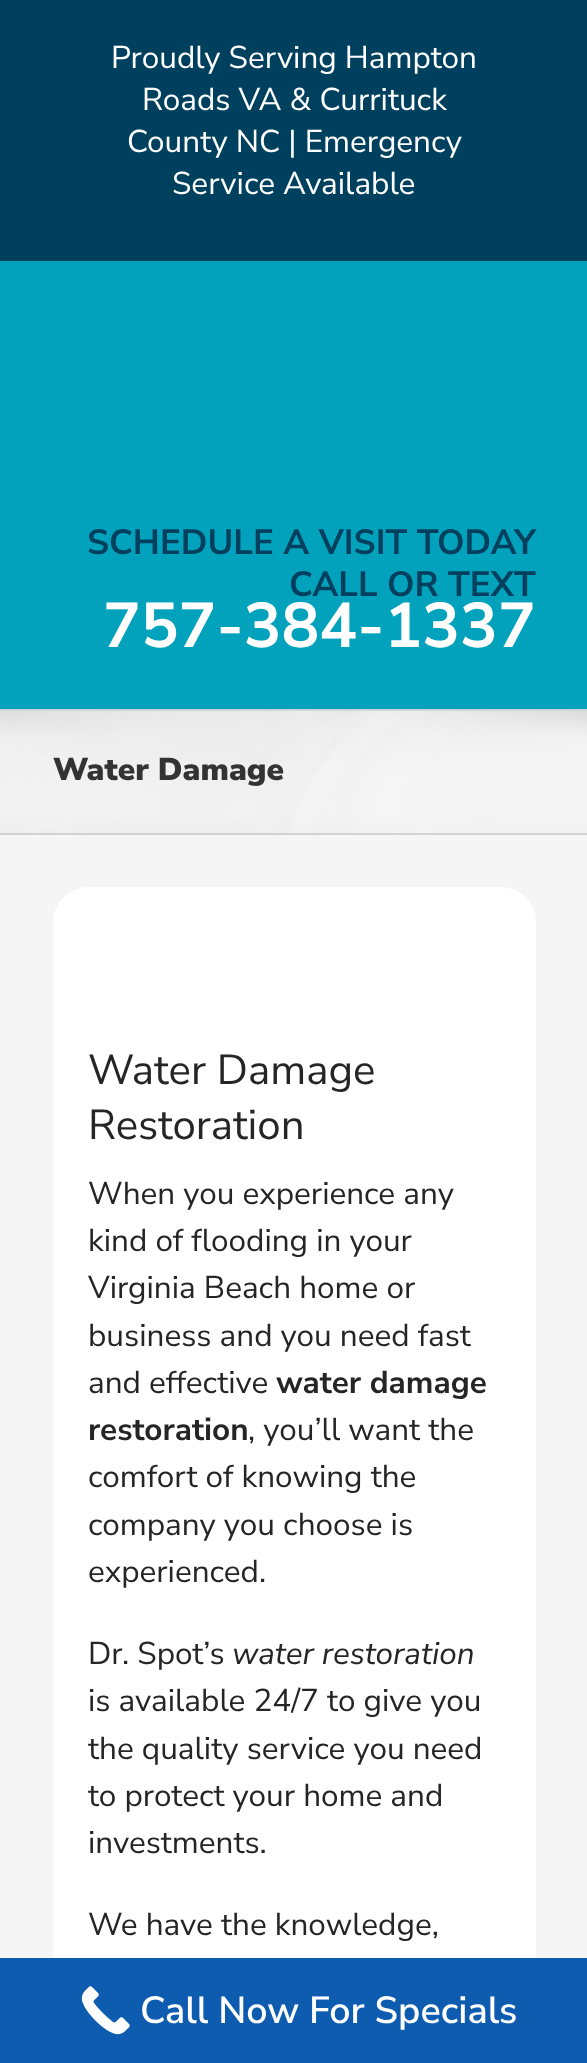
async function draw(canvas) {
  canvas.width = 587
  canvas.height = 2063
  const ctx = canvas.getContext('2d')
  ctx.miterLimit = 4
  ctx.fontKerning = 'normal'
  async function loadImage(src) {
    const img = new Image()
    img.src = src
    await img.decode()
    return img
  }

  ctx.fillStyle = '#f5f5f5'
  ctx.fillRect(0, 0, 587, 2063)
  ctx.fillStyle = '#00405f'
  ctx.fillRect(0, 0, 587, 261)
  ctx.font = '31.5px Nunito Sans'
  ctx.fillStyle = '#fff'
  ctx.fillText('Proudly Serving Hampton', 111, 68)
  ctx.fillText('Roads VA & Currituck', 142, 110)
  ctx.fillText('County NC | Emergency', 127, 152)
  ctx.fillText('Service Available', 172, 194)
  ctx.fillStyle = '#03a2bc'
  ctx.fillRect(0, 261, 587, 448)
  ctx.font = 'bold 35px Nunito Sans'
  ctx.fillStyle = '#00405f'
  ctx.fillText('SCHEDULE A VISIT TODAY', 87, 554)
  ctx.fillText('CALL OR TEXT', 289, 596)
  ctx.font = 'bold 63px Nunito Sans'
  ctx.fillStyle = '#fff'
  ctx.fillText('757-384-1337', 103, 647)
  ctx.drawImage(await loadImage('image0.png'), 0, 711, 587, 122)
  ctx.fillStyle = '#d2d3d4'
  ctx.fillRect(0, 709, 587, 2)
  ctx.fillRect(0, 833, 587, 2)
  ctx.font = '900 31.5px Nunito Sans'
  ctx.fillStyle = '#333'
  ctx.fillText('Water Damage', 53, 780)
  ctx.fillStyle = '#fff'
  ctx.beginPath()
  ctx.roundRect(53, 887, 483, 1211, 35)
  ctx.fill()
  ctx.font = '42px Nunito Sans'
  ctx.fillStyle = '#252525'
  ctx.fillText('Water Damage', 88, 1084)
  ctx.fillText('Restoration', 88, 1139)
  ctx.font = '31.5px Nunito Sans'
  ctx.fillText('When you experience any', 88, 1204)
  ctx.fillText('kind of flooding in your', 88, 1251)
  ctx.fillText('Virginia Beach home or', 88, 1298)
  ctx.fillText('business and you need fast', 88, 1346)
  ctx.fillText('and effective', 88, 1393)
  ctx.font = 'bold 31.5px Nunito Sans'
  ctx.fillText('water damage', 276, 1393)
  ctx.fillText('restoration', 88, 1440)
  ctx.font = '31.5px Nunito Sans'
  ctx.fillText(', you’ll want the', 248, 1440)
  ctx.fillText('comfort of knowing the', 88, 1487)
  ctx.fillText('company you choose is', 88, 1535)
  ctx.fillText('experienced.', 88, 1582)
  ctx.fillText('Dr. Spot’s', 88, 1664)
  ctx.font = 'italic 31.5px Nunito Sans'
  ctx.fillText('water restoration', 232, 1664)
  ctx.font = '31.5px Nunito Sans'
  ctx.fillText('is available 24/7 to give you', 88, 1711)
  ctx.fillText('the quality service you need', 88, 1759)
  ctx.fillText('to protect your home and', 88, 1806)
  ctx.fillText('investments.', 88, 1853)
  ctx.fillText('We have the knowledge,', 88, 1935)
  ctx.fillStyle = '#0e5caf'
  ctx.fillRect(0, 1958, 587, 105)
  ctx.drawImage(await loadImage('image1.png'), 81, 1986, 49, 49)
  ctx.font = '600 37.75px Nunito Sans'
  ctx.fillStyle = '#fff'
  ctx.fillText('Call Now For Specials', 140, 2023)
}

draw(document.querySelector('canvas'))
